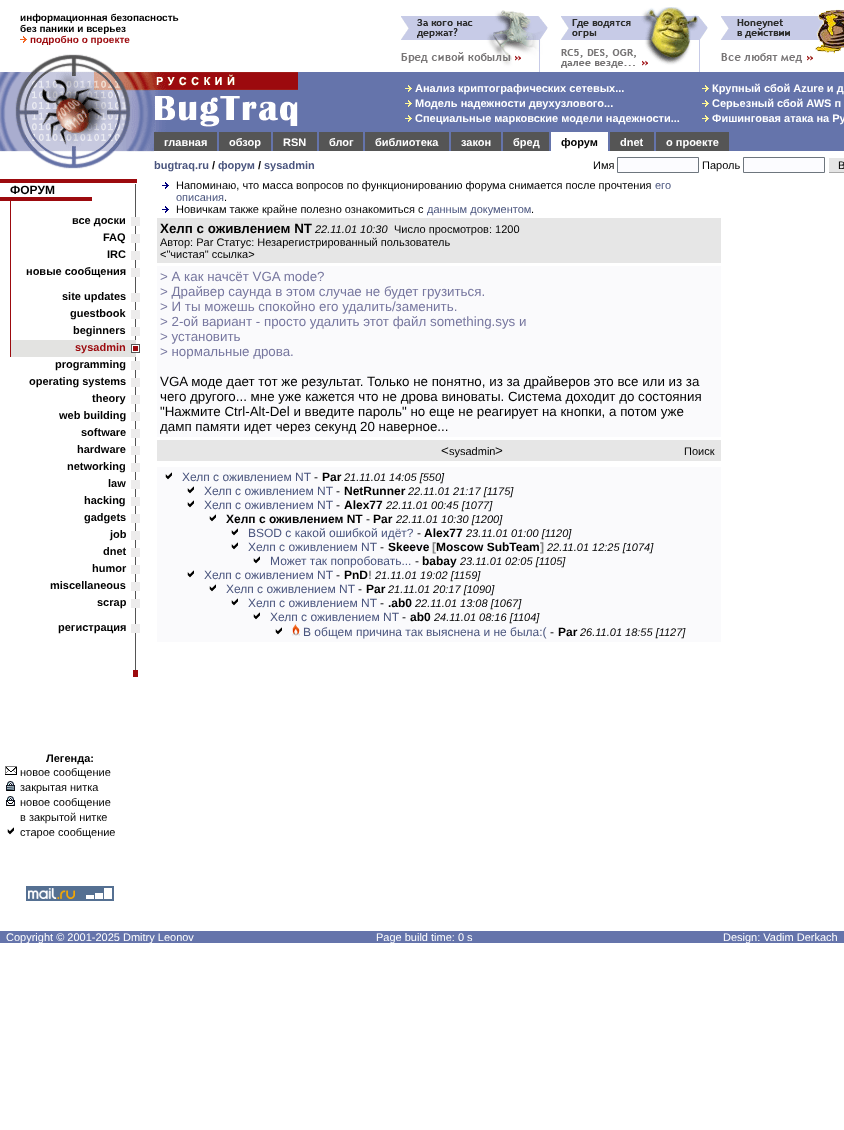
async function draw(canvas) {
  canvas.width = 844
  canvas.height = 1130
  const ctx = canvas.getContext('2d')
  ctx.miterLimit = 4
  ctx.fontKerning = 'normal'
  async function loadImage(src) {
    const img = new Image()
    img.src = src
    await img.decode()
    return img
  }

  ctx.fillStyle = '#fff'
  ctx.fillRect(0, 0, 844, 1130)
  ctx.font = 'bold 10px Liberation Sans'
  ctx.fillStyle = '#000'
  ctx.fillText('информационная безопасность', 20, 21)
  ctx.fillText('без паники и всерьез', 20, 32)
  ctx.drawImage(await loadImage('image0.png'), 20, 36, 7, 7)
  ctx.fillStyle = '#9c0a0e'
  ctx.fillText('подробно о проекте', 30, 43)
  ctx.drawImage(await loadImage('image1.png'), 401, 10, 147, 62)
  ctx.drawImage(await loadImage('image2.png'), 561, 7, 147, 65)
  ctx.drawImage(await loadImage('image3.png'), 721, 9, 123, 54)
  ctx.drawImage(await loadImage('image4.png'), 31, 54, 84, 18)
  ctx.fillStyle = '#6574ab'
  ctx.fillRect(298, 72, 546, 60)
  ctx.drawImage(await loadImage('image5.png'), 0, 72, 154, 79)
  ctx.drawImage(await loadImage('image6.png'), 0, 151, 154, 18)
  ctx.drawImage(await loadImage('image7.png'), 154, 72, 144, 60)
  ctx.drawImage(await loadImage('image8.png'), 405, 85, 7, 7)
  ctx.font = 'bold 11px Liberation Sans'
  ctx.fillStyle = '#fff'
  ctx.fillText('Анализ криптографических сетевых...', 415, 92)
  ctx.drawImage(await loadImage('image8.png'), 405, 100, 7, 7)
  ctx.fillText('Модель надежности двухузлового...', 415, 107)
  ctx.drawImage(await loadImage('image8.png'), 405, 115, 7, 7)
  ctx.fillText('Специальные марковские модели надежности...', 415, 122)
  ctx.drawImage(await loadImage('image8.png'), 702, 85, 7, 7)
  ctx.fillText('Крупный сбой Azure и д', 712, 92)
  ctx.drawImage(await loadImage('image8.png'), 702, 100, 7, 7)
  ctx.fillText('Серьезный сбой AWS п', 712, 107)
  ctx.drawImage(await loadImage('image8.png'), 702, 115, 7, 7)
  ctx.fillText('Фишинговая атака на Py', 712, 122)
  ctx.fillStyle = '#6574ab'
  ctx.fillRect(217, 132, 627, 19)
  ctx.fillStyle = '#555'
  ctx.fillRect(154, 132, 63, 19)
  ctx.fillStyle = '#fff'
  ctx.fillText('главная', 164, 146)
  ctx.fillStyle = '#555'
  ctx.fillRect(219, 132, 52, 19)
  ctx.fillStyle = '#fff'
  ctx.fillText('обзор', 229, 146)
  ctx.fillStyle = '#555'
  ctx.fillRect(273, 132, 44, 19)
  ctx.fillStyle = '#fff'
  ctx.fillText('RSN', 283, 146)
  ctx.fillStyle = '#555'
  ctx.fillRect(319, 132, 44, 19)
  ctx.fillStyle = '#fff'
  ctx.fillText('блог', 329, 146)
  ctx.fillStyle = '#555'
  ctx.fillRect(365, 132, 84, 19)
  ctx.fillStyle = '#fff'
  ctx.fillText('библиотека', 375, 146)
  ctx.fillStyle = '#555'
  ctx.fillRect(451, 132, 50, 19)
  ctx.fillStyle = '#fff'
  ctx.fillText('закон', 461, 146)
  ctx.fillStyle = '#555'
  ctx.fillRect(503, 132, 46, 19)
  ctx.fillStyle = '#fff'
  ctx.fillText('бред', 513, 146)
  ctx.fillRect(551, 132, 57, 19)
  ctx.fillStyle = '#000'
  ctx.fillText('форум', 561, 146)
  ctx.fillStyle = '#555'
  ctx.fillRect(610, 132, 44, 19)
  ctx.fillStyle = '#fff'
  ctx.fillText('dnet', 620, 146)
  ctx.fillStyle = '#555'
  ctx.fillRect(656, 132, 73, 19)
  ctx.fillStyle = '#fff'
  ctx.fillText('о проекте', 666, 146)
  ctx.fillStyle = '#4a557e'
  ctx.fillText('bugtraq.ru', 154, 169)
  ctx.fillStyle = '#000'
  ctx.fillText('/', 212, 169)
  ctx.fillStyle = '#4a557e'
  ctx.fillText('форум', 218, 169)
  ctx.fillStyle = '#000'
  ctx.fillText('/', 258, 169)
  ctx.fillStyle = '#4a557e'
  ctx.fillText('sysadmin', 264, 169)
  ctx.font = '11px Liberation Sans'
  ctx.fillStyle = '#000'
  ctx.fillText('Имя', 593, 169)
  ctx.fillStyle = '#fcfcff'
  ctx.beginPath()
  ctx.rect(617.5, 157.5, 81, 15)
  ctx.fill()
  ctx.strokeStyle = '#6e767e'
  ctx.stroke()
  ctx.fillStyle = '#000'
  ctx.fillText('Пароль', 702, 169)
  ctx.fillStyle = '#fcfcff'
  ctx.beginPath()
  ctx.rect(743.5, 157.5, 81, 15)
  ctx.fill()
  ctx.stroke()
  ctx.fillStyle = '#e5e5e5'
  ctx.fillRect(829, 158, 15, 14)
  ctx.fillStyle = '#aaa'
  ctx.fillRect(828, 172, 16, 1)
  ctx.fillStyle = '#fff'
  ctx.fillRect(828, 172, 1, 1)
  ctx.fillStyle = '#000'
  ctx.fillText('В', 838, 169)
  ctx.fillStyle = '#9c0a0e'
  ctx.fillRect(0, 179, 140, 4)
  ctx.fillStyle = '#fff'
  ctx.fillRect(137, 179, 3, 4)
  ctx.font = 'bold 12px Liberation Sans'
  ctx.fillStyle = '#000'
  ctx.fillText('ФОРУМ', 10, 194)
  ctx.fillStyle = '#555'
  ctx.fillRect(135, 183, 1, 157)
  ctx.fillStyle = '#fff'
  ctx.fillRect(135, 183, 1, 1)
  ctx.fillStyle = '#9c0a0e'
  ctx.fillRect(0, 197, 92, 4)
  ctx.fillRect(10, 201, 1, 80)
  ctx.font = 'bold 11px Liberation Sans'
  ctx.fillStyle = '#000'
  ctx.fillText('все доски', 72, 224)
  ctx.fillStyle = '#edecec'
  ctx.fillRect(131, 217, 9, 9)
  ctx.fillStyle = '#000'
  ctx.fillText('FAQ', 103, 241)
  ctx.fillStyle = '#edecec'
  ctx.fillRect(131, 234, 9, 9)
  ctx.fillStyle = '#000'
  ctx.fillText('IRC', 107, 258)
  ctx.fillStyle = '#edecec'
  ctx.fillRect(131, 251, 9, 9)
  ctx.fillStyle = '#000'
  ctx.fillText('новые сообщения', 26, 275)
  ctx.fillStyle = '#edecec'
  ctx.fillRect(131, 268, 9, 9)
  ctx.fillStyle = '#9c0a0e'
  ctx.fillRect(10, 281, 1, 76)
  ctx.fillStyle = '#000'
  ctx.fillText('site updates', 62, 300)
  ctx.fillStyle = '#edecec'
  ctx.fillRect(131, 293, 9, 9)
  ctx.fillStyle = '#000'
  ctx.fillText('guestbook', 70, 317)
  ctx.fillStyle = '#edecec'
  ctx.fillRect(131, 310, 9, 9)
  ctx.fillStyle = '#000'
  ctx.fillText('beginners', 73, 334)
  ctx.fillStyle = '#edecec'
  ctx.fillRect(131, 327, 9, 9)
  ctx.fillStyle = '#e3e3e1'
  ctx.fillRect(11, 340, 125, 17)
  ctx.fillStyle = '#9c0a0e'
  ctx.fillText('sysadmin', 75, 351)
  ctx.drawImage(await loadImage('image9.png'), 131, 344, 9, 9)
  ctx.fillStyle = '#000'
  ctx.fillText('programming', 55, 368)
  ctx.fillStyle = '#555'
  ctx.fillRect(135, 357, 1, 320)
  ctx.fillStyle = '#edecec'
  ctx.fillRect(131, 361, 9, 9)
  ctx.fillStyle = '#000'
  ctx.fillText('operating systems', 29, 385)
  ctx.fillStyle = '#edecec'
  ctx.fillRect(131, 378, 9, 9)
  ctx.fillStyle = '#000'
  ctx.fillText('theory', 92, 402)
  ctx.fillStyle = '#edecec'
  ctx.fillRect(131, 395, 9, 9)
  ctx.fillStyle = '#000'
  ctx.fillText('web building', 59, 419)
  ctx.fillStyle = '#edecec'
  ctx.fillRect(131, 412, 9, 9)
  ctx.fillStyle = '#000'
  ctx.fillText('software', 81, 436)
  ctx.fillStyle = '#edecec'
  ctx.fillRect(131, 429, 9, 9)
  ctx.fillStyle = '#000'
  ctx.fillText('hardware', 77, 453)
  ctx.fillStyle = '#edecec'
  ctx.fillRect(131, 446, 9, 9)
  ctx.fillStyle = '#000'
  ctx.fillText('networking', 67, 470)
  ctx.fillStyle = '#edecec'
  ctx.fillRect(131, 463, 9, 9)
  ctx.fillStyle = '#000'
  ctx.fillText('law', 108, 487)
  ctx.fillStyle = '#edecec'
  ctx.fillRect(131, 480, 9, 9)
  ctx.fillStyle = '#000'
  ctx.fillText('hacking', 84, 504)
  ctx.fillStyle = '#edecec'
  ctx.fillRect(131, 497, 9, 9)
  ctx.fillStyle = '#000'
  ctx.fillText('gadgets', 84, 521)
  ctx.fillStyle = '#edecec'
  ctx.fillRect(131, 514, 9, 9)
  ctx.fillStyle = '#000'
  ctx.fillText('job', 110, 538)
  ctx.fillStyle = '#edecec'
  ctx.fillRect(131, 531, 9, 9)
  ctx.fillStyle = '#000'
  ctx.fillText('dnet', 103, 555)
  ctx.fillStyle = '#edecec'
  ctx.fillRect(131, 548, 9, 9)
  ctx.fillStyle = '#000'
  ctx.fillText('humor', 92, 572)
  ctx.fillStyle = '#edecec'
  ctx.fillRect(131, 565, 9, 9)
  ctx.fillStyle = '#000'
  ctx.fillText('miscellaneous', 50, 589)
  ctx.fillStyle = '#edecec'
  ctx.fillRect(131, 582, 9, 9)
  ctx.fillStyle = '#000'
  ctx.fillText('scrap', 97, 606)
  ctx.fillStyle = '#edecec'
  ctx.fillRect(131, 599, 9, 9)
  ctx.fillStyle = '#000'
  ctx.fillText('регистрация', 58, 631)
  ctx.fillStyle = '#edecec'
  ctx.fillRect(131, 624, 9, 9)
  ctx.fillStyle = '#9c0a0e'
  ctx.fillRect(133, 670, 5, 7)
  ctx.fillStyle = '#000'
  ctx.fillText('Легенда:', 46, 762)
  ctx.drawImage(await loadImage('image10.png'), 5, 766, 12, 9)
  ctx.font = '11px Liberation Sans'
  ctx.fillText('новое сообщение', 20, 776)
  ctx.drawImage(await loadImage('image11.png'), 6, 781, 9, 10)
  ctx.fillText('закрытая нитка', 20, 791)
  ctx.drawImage(await loadImage('image12.png'), 6, 796, 9, 10)
  ctx.fillText('новое сообщение', 20, 806)
  ctx.fillText('в закрытой нитке', 20, 821)
  ctx.drawImage(await loadImage('image13.png'), 7, 827, 7, 8)
  ctx.fillText('старое сообщение', 20, 836)
  ctx.drawImage(await loadImage('image14.png'), 162, 182, 7, 7)
  ctx.fillText('Напоминаю, что масса вопросов по функционированию форума снимается после прочтения', 176, 189)
  ctx.fillStyle = '#4a557e'
  ctx.fillText('его', 655, 189)
  ctx.fillText('описания', 176, 201)
  ctx.fillStyle = '#000'
  ctx.fillText('.', 224, 201)
  ctx.drawImage(await loadImage('image14.png'), 162, 206, 7, 7)
  ctx.fillText('Новичкам также крайне полезно ознакомиться с', 176, 213)
  ctx.fillStyle = '#4a557e'
  ctx.fillText('данным документом', 427, 213)
  ctx.fillStyle = '#000'
  ctx.fillText('.', 531, 213)
  ctx.fillStyle = '#e6e6e6'
  ctx.fillRect(157, 218, 564, 45)
  ctx.font = 'bold 13.35px Liberation Sans'
  ctx.fillStyle = '#000'
  ctx.fillText('Хелп с оживлением NT', 160, 233)
  ctx.font = 'italic 11px Liberation Sans'
  ctx.fillText('22.11.01 10:30', 315, 233)
  ctx.font = '11px Liberation Sans'
  ctx.fillText('Число просмотров: 1200', 394, 233)
  ctx.fillText('Автор: Par Статус: Незарегистрированный пользователь', 160, 246)
  ctx.fillText('<"чистая" ссылка>', 160, 258)
  ctx.fillStyle = '#fafafc'
  ctx.fillRect(157, 266, 564, 171)
  ctx.font = '13.35px Liberation Sans'
  ctx.fillStyle = '#77779f'
  ctx.fillText('> А как начсёт VGA mode?', 160, 281)
  ctx.fillText('> Драйвер саунда в этом случае не будет грузиться.', 160, 296)
  ctx.fillText('> И ты можешь спокойно его удалить/заменить.', 160, 311)
  ctx.fillText('> 2-ой вариант - просто удалить этот файл something.sys и', 160, 326)
  ctx.fillText('> установить', 160, 341)
  ctx.fillText('> нормальные дрова.', 160, 356)
  ctx.fillStyle = '#000'
  ctx.fillText('VGA моде дает тот же результат. Только не понятно, из за драйверов это все или из за', 160, 386)
  ctx.fillText('чего другого... мне уже кажется что не дрова виноваты. Система доходит до состояния', 160, 401)
  ctx.fillText('"Нажмите Ctrl-Alt-Del и введите пароль" но еще не реагирует на кнопки, а потом уже', 160, 416)
  ctx.fillText('дамп памяти идет через секунд 20 наверное...', 160, 431)
  ctx.fillStyle = '#e6e6e6'
  ctx.fillRect(157, 440, 564, 21)
  ctx.fillStyle = '#000'
  ctx.fillText('<', 441, 455)
  ctx.font = '11px Liberation Sans'
  ctx.fillText('sysadmin', 449, 455)
  ctx.font = '13.35px Liberation Sans'
  ctx.fillText('>', 495, 455)
  ctx.font = '11px Liberation Sans'
  ctx.fillText('Поиск', 684, 455)
  ctx.fillStyle = '#fafafc'
  ctx.fillRect(157, 467, 564, 175)
  ctx.drawImage(await loadImage('image15.png'), 165, 472, 7, 8)
  ctx.font = '12px Liberation Sans'
  ctx.fillStyle = '#4a557e'
  ctx.fillText('Хелп с оживлением NT', 182, 481)
  ctx.fillStyle = '#000'
  ctx.fillText('-', 314, 481)
  ctx.font = 'bold 12px Liberation Sans'
  ctx.fillText('Par', 322, 481)
  ctx.font = 'italic 11px Liberation Sans'
  ctx.fillText('21.11.01 14:05 [550]', 344, 481)
  ctx.drawImage(await loadImage('image15.png'), 187, 486, 7, 8)
  ctx.font = '12px Liberation Sans'
  ctx.fillStyle = '#4a557e'
  ctx.fillText('Хелп с оживлением NT', 204, 495)
  ctx.fillStyle = '#000'
  ctx.fillText('-', 336, 495)
  ctx.font = 'bold 12px Liberation Sans'
  ctx.fillText('NetRunner', 344, 495)
  ctx.font = 'italic 11px Liberation Sans'
  ctx.fillText('22.11.01 21:17 [1175]', 408, 495)
  ctx.drawImage(await loadImage('image15.png'), 187, 500, 7, 8)
  ctx.font = '12px Liberation Sans'
  ctx.fillStyle = '#4a557e'
  ctx.fillText('Хелп с оживлением NT', 204, 509)
  ctx.fillStyle = '#000'
  ctx.fillText('-', 336, 509)
  ctx.font = 'bold 12px Liberation Sans'
  ctx.fillText('Alex77', 344, 509)
  ctx.font = 'italic 11px Liberation Sans'
  ctx.fillText('22.11.01 00:45 [1077]', 386, 509)
  ctx.drawImage(await loadImage('image15.png'), 209, 514, 7, 8)
  ctx.font = 'bold 12px Liberation Sans'
  ctx.fillText('Хелп с оживлением NT', 226, 523)
  ctx.font = '12px Liberation Sans'
  ctx.fillText('-', 366, 523)
  ctx.font = 'bold 12px Liberation Sans'
  ctx.fillText('Par', 373, 523)
  ctx.font = 'italic 11px Liberation Sans'
  ctx.fillText('22.11.01 10:30 [1200]', 396, 523)
  ctx.drawImage(await loadImage('image15.png'), 231, 528, 7, 8)
  ctx.font = '12px Liberation Sans'
  ctx.fillStyle = '#4a557e'
  ctx.fillText('BSOD с какой ошибкой идёт?', 248, 537)
  ctx.fillStyle = '#000'
  ctx.fillText('-', 417, 537)
  ctx.font = 'bold 12px Liberation Sans'
  ctx.fillText('Alex77', 424, 537)
  ctx.font = 'italic 11px Liberation Sans'
  ctx.fillText('23.11.01 01:00 [1120]', 466, 537)
  ctx.drawImage(await loadImage('image15.png'), 231, 542, 7, 8)
  ctx.font = '12px Liberation Sans'
  ctx.fillStyle = '#4a557e'
  ctx.fillText('Хелп с оживлением NT', 248, 551)
  ctx.fillStyle = '#000'
  ctx.fillText('-', 380, 551)
  ctx.font = 'bold 12px Liberation Sans'
  ctx.fillText('Skeeve', 388, 551)
  ctx.fillStyle = '#808080'
  ctx.fillText('[', 432, 551)
  ctx.fillStyle = '#000'
  ctx.fillText('Moscow SubTeam', 436, 551)
  ctx.fillStyle = '#808080'
  ctx.fillText(']', 540, 551)
  ctx.font = 'italic 11px Liberation Sans'
  ctx.fillStyle = '#000'
  ctx.fillText('22.11.01 12:25 [1074]', 547, 551)
  ctx.drawImage(await loadImage('image15.png'), 253, 556, 7, 8)
  ctx.font = '12px Liberation Sans'
  ctx.fillStyle = '#4a557e'
  ctx.fillText('Может так попробовать...', 270, 565)
  ctx.fillStyle = '#000'
  ctx.fillText('-', 415, 565)
  ctx.font = 'bold 12px Liberation Sans'
  ctx.fillText('babay', 422, 565)
  ctx.font = 'italic 11px Liberation Sans'
  ctx.fillText('23.11.01 02:05 [1105]', 460, 565)
  ctx.drawImage(await loadImage('image15.png'), 187, 570, 7, 8)
  ctx.font = '12px Liberation Sans'
  ctx.fillStyle = '#4a557e'
  ctx.fillText('Хелп с оживлением NT', 204, 579)
  ctx.fillStyle = '#000'
  ctx.fillText('-', 336, 579)
  ctx.font = 'bold 12px Liberation Sans'
  ctx.fillText('PnD', 344, 579)
  ctx.fillStyle = '#808080'
  ctx.fillText('!', 368, 579)
  ctx.font = 'italic 11px Liberation Sans'
  ctx.fillStyle = '#000'
  ctx.fillText('21.11.01 19:02 [1159]', 375, 579)
  ctx.drawImage(await loadImage('image15.png'), 209, 584, 7, 8)
  ctx.font = '12px Liberation Sans'
  ctx.fillStyle = '#4a557e'
  ctx.fillText('Хелп с оживлением NT', 226, 593)
  ctx.fillStyle = '#000'
  ctx.fillText('-', 358, 593)
  ctx.font = 'bold 12px Liberation Sans'
  ctx.fillText('Par', 366, 593)
  ctx.font = 'italic 11px Liberation Sans'
  ctx.fillText('21.11.01 20:17 [1090]', 388, 593)
  ctx.drawImage(await loadImage('image15.png'), 231, 598, 7, 8)
  ctx.font = '12px Liberation Sans'
  ctx.fillStyle = '#4a557e'
  ctx.fillText('Хелп с оживлением NT', 248, 607)
  ctx.fillStyle = '#000'
  ctx.fillText('-', 380, 607)
  ctx.font = 'bold 12px Liberation Sans'
  ctx.fillText('.ab0', 388, 607)
  ctx.font = 'italic 11px Liberation Sans'
  ctx.fillText('22.11.01 13:08 [1067]', 415, 607)
  ctx.drawImage(await loadImage('image15.png'), 253, 612, 7, 8)
  ctx.font = '12px Liberation Sans'
  ctx.fillStyle = '#4a557e'
  ctx.fillText('Хелп с оживлением NT', 270, 621)
  ctx.fillStyle = '#000'
  ctx.fillText('-', 402, 621)
  ctx.font = 'bold 12px Liberation Sans'
  ctx.fillText('ab0', 410, 621)
  ctx.font = 'italic 11px Liberation Sans'
  ctx.fillText('24.11.01 08:16 [1104]', 434, 621)
  ctx.drawImage(await loadImage('image15.png'), 275, 627, 7, 8)
  ctx.drawImage(await loadImage('image16.png'), 292, 624, 8, 12)
  ctx.font = '12px Liberation Sans'
  ctx.fillStyle = '#4a557e'
  ctx.fillText('В общем причина так выяснена и не была:(', 303, 636)
  ctx.fillStyle = '#000'
  ctx.fillText('-', 550, 636)
  ctx.font = 'bold 12px Liberation Sans'
  ctx.fillText('Par', 558, 636)
  ctx.font = 'italic 11px Liberation Sans'
  ctx.fillText('26.11.01 18:55 [1127]', 580, 636)
  ctx.drawImage(await loadImage('image17.png'), 26, 886, 88, 15)
  ctx.fillStyle = '#6574ab'
  ctx.fillRect(0, 931, 844, 12)
  ctx.font = '11px Liberation Sans'
  ctx.fillStyle = '#fff'
  ctx.fillText('Copyright © 2001-2025 Dmitry Leonov', 6, 941)
  ctx.fillText('Page build time: 0 s', 376, 941)
  ctx.fillText('Design: Vadim Derkach', 723, 941)
}

draw(document.querySelector('canvas'))
